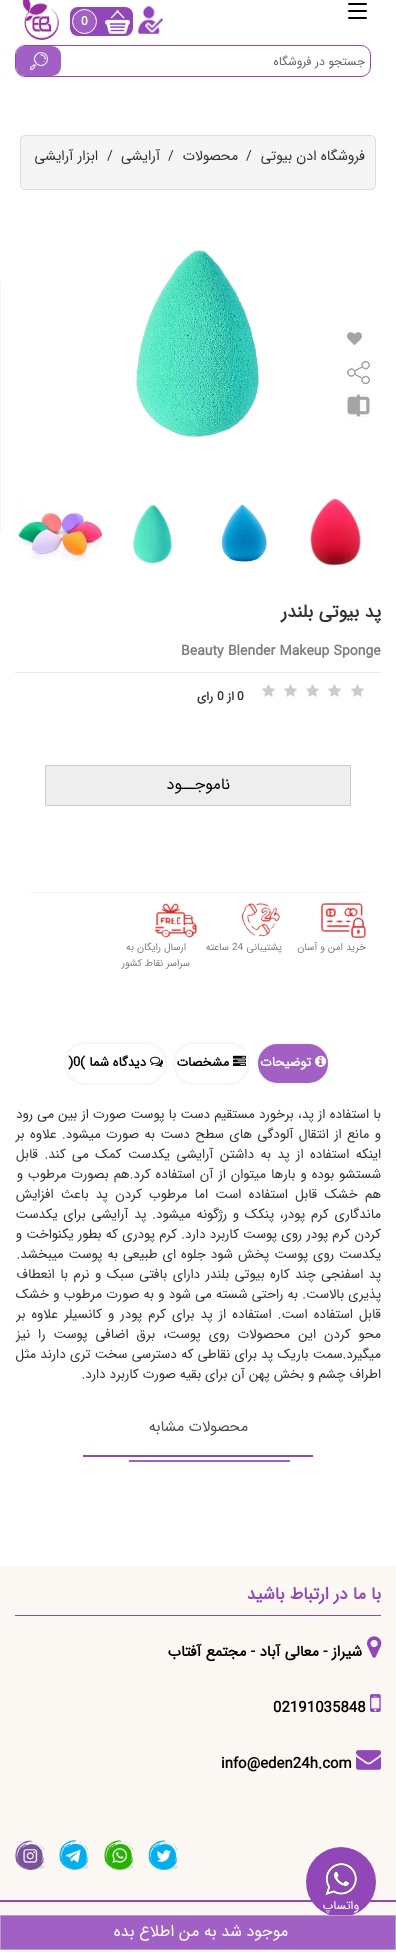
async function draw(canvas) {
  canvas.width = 396
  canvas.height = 1952
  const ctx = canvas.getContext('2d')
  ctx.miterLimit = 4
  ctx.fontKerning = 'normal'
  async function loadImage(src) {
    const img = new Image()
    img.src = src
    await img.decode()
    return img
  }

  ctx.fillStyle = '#fff'
  ctx.fillRect(0, 0, 396, 1952)
  ctx.fillStyle = '#000'
  ctx.beginPath()
  ctx.roundRect(348, 10, 19, 2, 1)
  ctx.fill()
  ctx.beginPath()
  ctx.roundRect(348, 3, 19, 2, 1)
  ctx.fill()
  ctx.beginPath()
  ctx.roundRect(348, 17, 19, 2, 1)
  ctx.fill()
  ctx.drawImage(await loadImage('image0.png'), 138, 6, 25, 28)
  ctx.fillStyle = '#9247b9'
  ctx.beginPath()
  ctx.roundRect(70, 7, 63, 29, 8)
  ctx.fill()
  ctx.drawImage(await loadImage('image1.png'), 105, 10, 25, 24)
  ctx.fillStyle = '#a160c3'
  ctx.beginPath()
  ctx.arc(84.5, 21.5, 12, 0, 2 * Math.PI)
  ctx.fill()
  ctx.strokeStyle = '#fff'
  ctx.stroke()
  ctx.font = 'bold 12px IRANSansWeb'
  ctx.fillStyle = '#fff'
  ctx.fillText('0', 81, 25)
  ctx.beginPath()
  ctx.roundRect(15.5, 45.5, 355, 31, 9.5)
  ctx.strokeStyle = '#9247b9'
  ctx.stroke()
  ctx.direction = 'rtl'
  ctx.font = '12px IRANSansWeb'
  ctx.fillStyle = '#666'
  ctx.fillText('جستجو در فروشگاه', 365, 65)
  ctx.fillStyle = '#a160c3'
  ctx.beginPath()
  ctx.roundRect(16, 46, 45, 30, 9)
  ctx.fill()
  ctx.drawImage(await loadImage('image2.png'), 30, 52, 18, 18)
  ctx.drawImage(await loadImage('image3.png'), 22, 0, 37, 40)
  ctx.fillStyle = '#f5f5f5'
  ctx.beginPath()
  ctx.roundRect(20.5, 135.5, 355, 54, 4.5)
  ctx.fill()
  ctx.strokeStyle = '#ddd'
  ctx.stroke()
  ctx.font = '14px IRANSansWeb'
  ctx.fillStyle = '#333'
  ctx.fillText('فروشگاه ادن بیوتی', 365, 160)
  ctx.direction = 'ltr'
  ctx.fillText('/', 246, 160)
  ctx.direction = 'rtl'
  ctx.fillText('محصولات', 238, 160)
  ctx.direction = 'ltr'
  ctx.fillText('/', 168, 160)
  ctx.direction = 'rtl'
  ctx.fillText('آرایشی', 160, 160)
  ctx.direction = 'ltr'
  ctx.fillText('/', 107, 160)
  ctx.direction = 'rtl'
  ctx.fillText('ابزار آرایشی', 98, 160)
  ctx.drawImage(await loadImage('image4.png'), 347, 332, 15, 13)
  ctx.drawImage(await loadImage('image5.png'), 347, 361, 23, 23)
  ctx.drawImage(await loadImage('image6.png'), 347, 394, 23, 23)
  ctx.drawImage(await loadImage('image7.png'), 52, 195, 292, 293)
  ctx.fillStyle = '#f5f5f5'
  ctx.fillRect(0, 282, 1, 250)
  ctx.drawImage(await loadImage('image8.png'), 310, 498, 51, 68)
  ctx.drawImage(await loadImage('image9.png'), 221, 504, 46, 58)
  ctx.drawImage(await loadImage('image10.png'), 133, 505, 39, 59)
  ctx.drawImage(await loadImage('image11.png'), 17, 502, 86, 59)
  ctx.font = 'bold 18px IRANSansWeb'
  ctx.fillStyle = '#333'
  ctx.fillText('پد بیوتی بلندر', 381, 617)
  ctx.fillStyle = '#e9e7e7'
  ctx.fillRect(15, 672, 366, 1)
  ctx.direction = 'ltr'
  ctx.font = 'bold 14px IRANSansWeb'
  ctx.fillStyle = '#7e7e7e'
  ctx.fillText('Beauty Blender Makeup Sponge', 181, 655)
  ctx.drawImage(await loadImage('image12.png'), 351, 684, 13, 13)
  ctx.drawImage(await loadImage('image12.png'), 328, 684, 13, 13)
  ctx.drawImage(await loadImage('image12.png'), 306, 684, 13, 13)
  ctx.drawImage(await loadImage('image12.png'), 284, 684, 13, 13)
  ctx.drawImage(await loadImage('image12.png'), 262, 684, 13, 13)
  ctx.font = 'bold 12px IRANSansWeb'
  ctx.fillStyle = '#333'
  ctx.fillText('0', 237, 700)
  ctx.direction = 'rtl'
  ctx.fillText('از', 234, 700)
  ctx.direction = 'ltr'
  ctx.fillText('0', 217, 700)
  ctx.direction = 'rtl'
  ctx.fillText('رای', 213, 700)
  ctx.fillStyle = '#eee'
  ctx.beginPath()
  ctx.rect(45.5, 765.5, 305, 40)
  ctx.fill()
  ctx.strokeStyle = '#ccc'
  ctx.stroke()
  ctx.font = '16px IRANSansWeb'
  ctx.fillStyle = '#000'
  ctx.fillText('ناموجــود', 230, 789)
  ctx.fillStyle = '#fbf8f3'
  ctx.fillRect(0, 1566, 396, 386)
  ctx.fillStyle = '#9247b9'
  ctx.fillRect(0, 1900, 396, 2)
  ctx.beginPath()
  ctx.arc(341, 1882, 35, 0, 2 * Math.PI)
  ctx.fill()
  ctx.fillStyle = '#a160c3'
  ctx.beginPath()
  ctx.rect(0.5, 1915.5, 395, 34)
  ctx.fill()
  ctx.strokeStyle = '#bb9acf'
  ctx.stroke()
  ctx.fillStyle = '#fff'
  ctx.fillText('موجود شد به من اطلاع بده', 288, 1936)
  ctx.fillStyle = '#f5f5f5'
  ctx.fillRect(30, 892, 336, 1)
  ctx.drawImage(await loadImage('image13.png'), 321, 903, 45, 35)
  ctx.font = '10px IRANSansWeb'
  ctx.fillStyle = '#7e7e7e'
  ctx.fillText('خرید امن و آسان', 366, 950)
  ctx.drawImage(await loadImage('image14.png'), 241, 903, 39, 34)
  ctx.fillText('پشتیبانی', 282, 950)
  ctx.direction = 'ltr'
  ctx.fillText('24', 232, 950)
  ctx.direction = 'rtl'
  ctx.fillText('ساعته', 229, 950)
  ctx.drawImage(await loadImage('image15.png'), 154, 903, 43, 35)
  ctx.fillText('ارسال رایگان به', 186, 950)
  ctx.fillText('سراسر نقاط کشور', 190, 966)
  ctx.fillStyle = '#a160c3'
  ctx.beginPath()
  ctx.roundRect(257, 1043, 72, 41, 20.5)
  ctx.fill()
  ctx.strokeStyle = '#f6f6f6'
  ctx.lineWidth = 2
  ctx.stroke()
  ctx.drawImage(await loadImage('image16.png'), 315, 1055, 12, 12)
  ctx.font = 'bold 13px IRANSansWeb'
  ctx.fillStyle = '#fff'
  ctx.fillText('توضیحات', 311, 1066)
  ctx.beginPath()
  ctx.roundRect(174, 1043, 75, 41, 20.5)
  ctx.stroke()
  ctx.drawImage(await loadImage('image17.png'), 233, 1055, 13, 11)
  ctx.fillStyle = '#000'
  ctx.fillText('مشخصات', 229, 1066)
  ctx.beginPath()
  ctx.roundRect(65, 1043, 101, 41, 20.5)
  ctx.stroke()
  ctx.drawImage(await loadImage('image18.png'), 150, 1056, 13, 11)
  ctx.fillText('دیدگاه شما', 146, 1066)
  ctx.direction = 'ltr'
  ctx.fillText(')0(', 68, 1066)
  ctx.wordSpacing = '0.25px'
  ctx.direction = 'rtl'
  ctx.font = '13.3px IRANSansWeb'
  ctx.fillStyle = '#333'
  ctx.fillText('با استفاده از پد، برخورد مستقیم دست با پوست صورت از بین می رود', 381, 1118)
  ctx.wordSpacing = '1.4px'
  ctx.fillText('و مانع از انتقال آلودگی های سطح دست به صورت میشود. علاوه بر', 381, 1138)
  ctx.wordSpacing = '2.5px'
  ctx.fillText('اینکه استفاده از پد به داشتن آرایشی یکدست کمک می کند. قابل', 381, 1158)
  ctx.wordSpacing = '1px'
  ctx.fillText('شستشو بوده و بارها میتوان از آن استفاده کرد.هم بصورت مرطوب و', 381, 1178)
  ctx.wordSpacing = '3.25px'
  ctx.fillText('هم خشک قابل استفاده است اما مرطوب کردن پد باعث افزایش', 381, 1198)
  ctx.wordSpacing = '1.75px'
  ctx.fillText('ماندگاری کرم پودر، پنکک و رژگونه میشود. پد آرایشی برای یکدست', 381, 1218)
  ctx.wordSpacing = '0.25px'
  ctx.fillText('کردن کرم پودر روی پوست کاربرد دارد. کرم پودری که بطور یکنواخت و', 381, 1238)
  ctx.wordSpacing = '1px'
  ctx.fillText('یکدست روی پوست پخش شود جلوه ای طبیعی به پوست میبخشد.', 381, 1258)
  ctx.wordSpacing = '1.5px'
  ctx.fillText('پد اسفنجی چند کاره بیوتی بلندر دارای بافتی سبک و نرم با انعطاف', 381, 1278)
  ctx.wordSpacing = '0.25px'
  ctx.fillText('پذیری بالاست. به راحتی شسته می شود و به صورت مرطوب و خشک', 381, 1298)
  ctx.wordSpacing = '2.1px'
  ctx.fillText('قابل استفاده است. استفاده از پد برای کرم پودر و کانسیلر علاوه بر', 381, 1318)
  ctx.wordSpacing = '4px'
  ctx.fillText('محو کردن این محصولات روی پوست، برق اضافی پوست را نیز', 381, 1338)
  ctx.wordSpacing = '0.25px'
  ctx.fillText('میگیرد.سمت باریک پد برای نقاطی که دسترسی سخت تری دارند مثل', 381, 1358)
  ctx.wordSpacing = '0px'
  ctx.fillText('اطراف چشم و بخش پهن آن برای بقیه صورت کاربرد دارد.', 381, 1378)
  ctx.font = '15px IRANSansWeb'
  ctx.fillStyle = '#525052'
  ctx.fillText('محصولات مشابه', 248, 1431)
  ctx.fillStyle = '#9247b9'
  ctx.fillRect(83, 1455, 230, 2)
  ctx.fillStyle = '#a160c3'
  ctx.fillRect(129, 1460, 161, 2)
  ctx.fillStyle = '#9247b9'
  ctx.fillRect(15, 1615, 366, 1)
  ctx.font = 'bold 17px IRANSansWeb'
  ctx.fillText('با ما در ارتباط باشید', 381, 1599)
  ctx.drawImage(await loadImage('image19.png'), 367, 1636, 15, 22)
  ctx.font = 'bold 15px IRANSansWeb'
  ctx.fillStyle = '#000'
  ctx.fillText('شیراز - معالی آباد - مجتمع آفتاب', 362, 1656)
  ctx.drawImage(await loadImage('image20.png'), 370, 1694, 11, 18)
  ctx.direction = 'ltr'
  ctx.fillText('02191035848', 273, 1712)
  ctx.drawImage(await loadImage('image21.png'), 356, 1750, 25, 20)
  ctx.fillText('info@eden24h.com', 221, 1768)
  ctx.drawImage(await loadImage('image22.png'), 148, 1840, 30, 30)
  ctx.drawImage(await loadImage('image23.png'), 104, 1840, 30, 30)
  ctx.drawImage(await loadImage('image24.png'), 59, 1840, 30, 30)
  ctx.drawImage(await loadImage('image25.png'), 15, 1840, 30, 30)
  ctx.drawImage(await loadImage('image26.png'), 325, 1863, 32, 33)
  ctx.direction = 'rtl'
  ctx.font = '12px IRANSansWeb'
  ctx.fillStyle = '#fff'
  ctx.fillText('واتساپ', 359, 1909)
}

draw(document.querySelector('canvas'))
